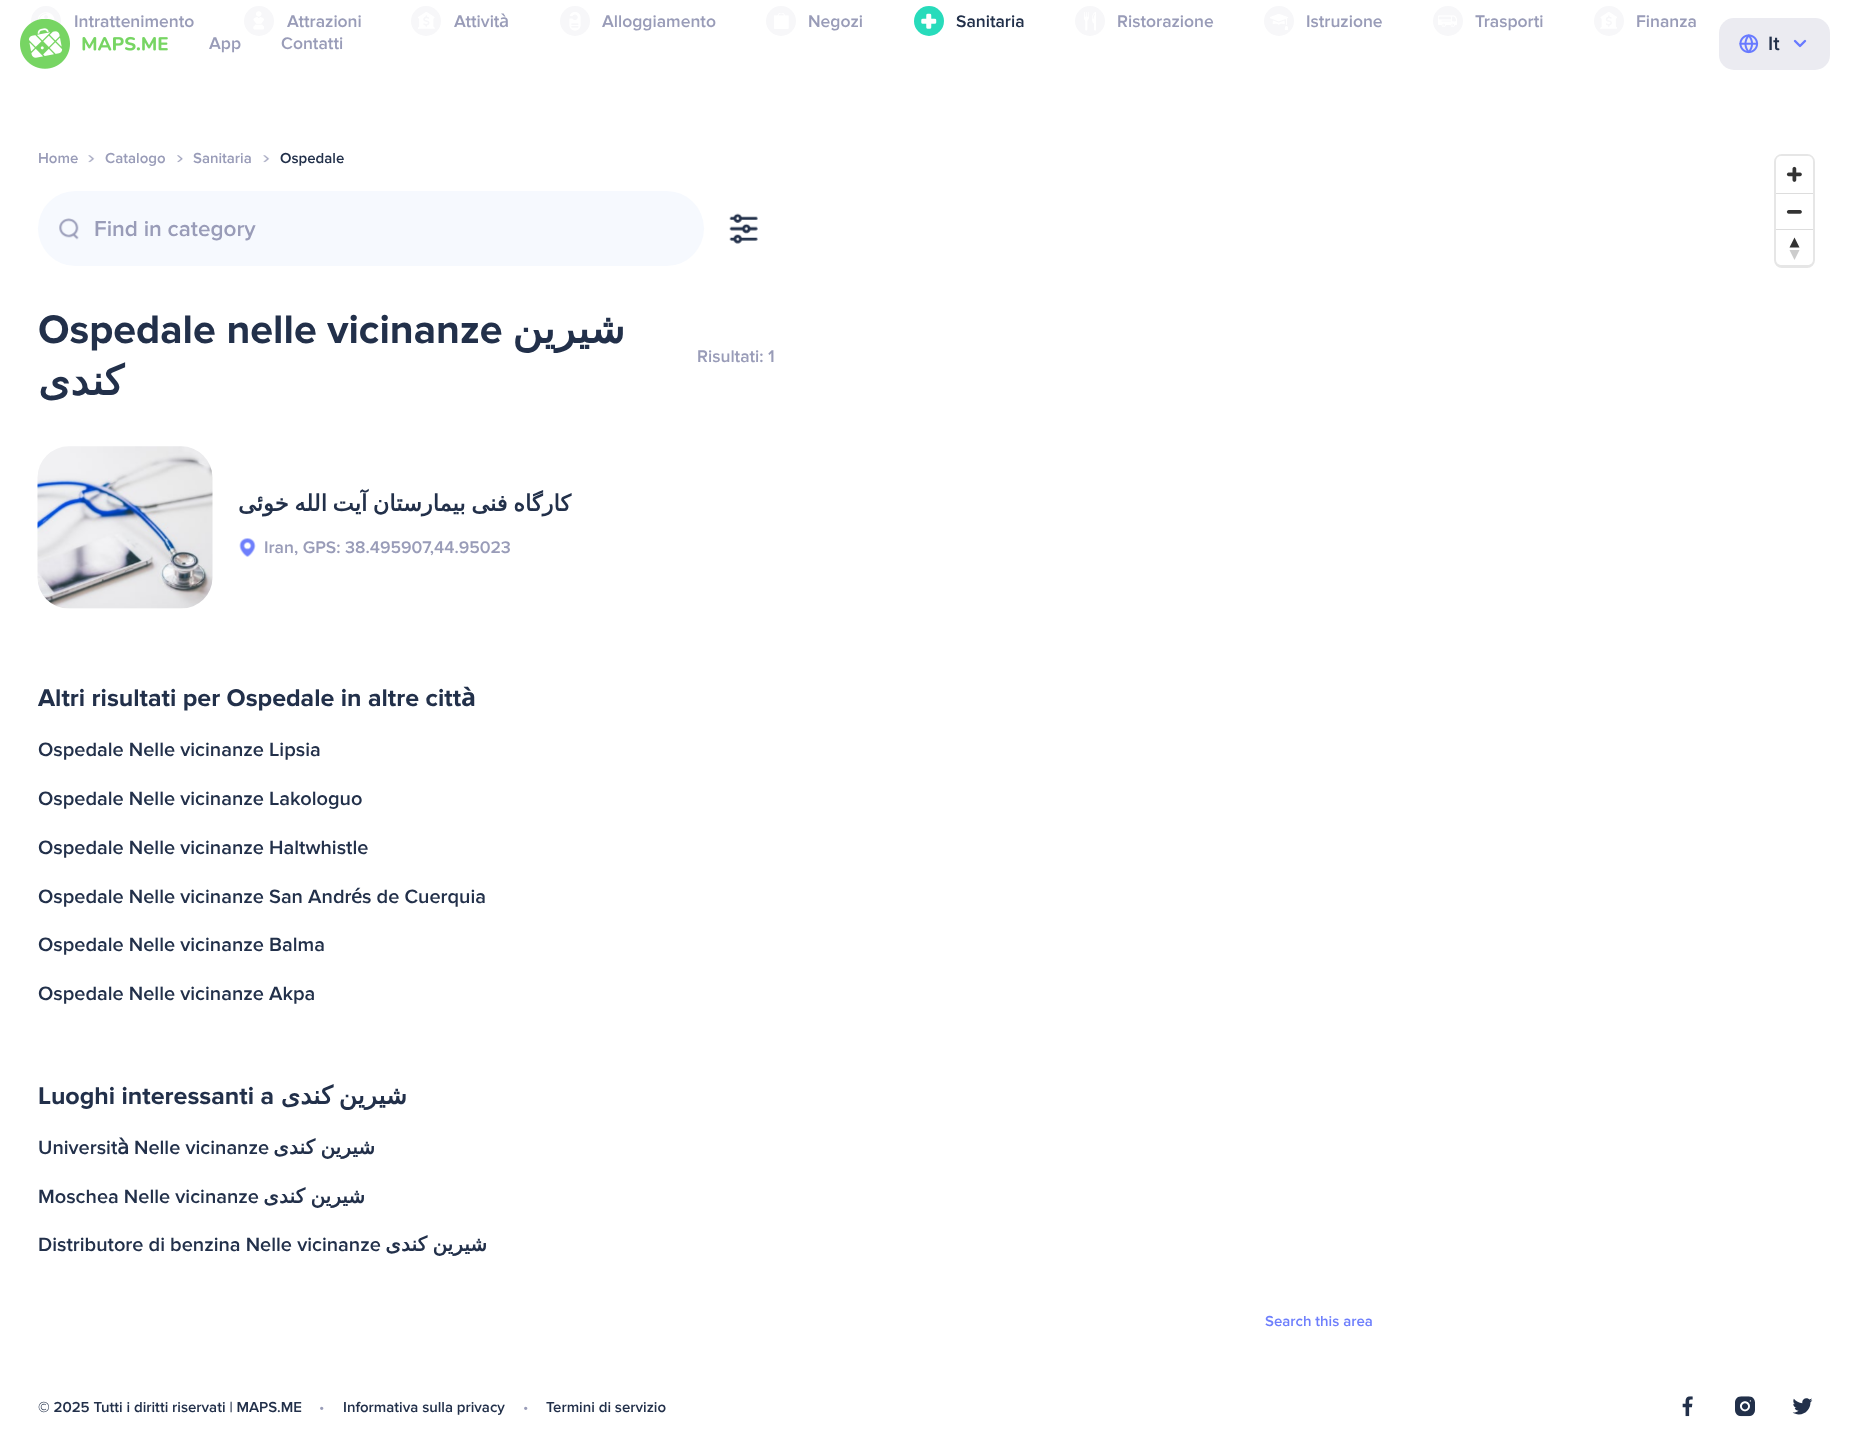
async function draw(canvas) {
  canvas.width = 1849
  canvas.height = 1444
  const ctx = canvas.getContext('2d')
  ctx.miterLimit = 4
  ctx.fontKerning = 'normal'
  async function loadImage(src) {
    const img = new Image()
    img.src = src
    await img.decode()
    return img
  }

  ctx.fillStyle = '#fff'
  ctx.fillRect(0, 0, 1849, 1444)
  ctx.fillStyle = '#f7f7f9'
  ctx.beginPath()
  ctx.arc(46, 21, 15, 0, 2 * Math.PI)
  ctx.fill()
  ctx.drawImage(await loadImage('image0.png'), 38, 12, 17, 9)
  ctx.font = '600 17.5px Proxima Nova'
  ctx.fillStyle = '#999cb8'
  ctx.fillText('Intrattenimento', 74, 27)
  ctx.fillStyle = '#f7f7f9'
  ctx.beginPath()
  ctx.arc(259, 21, 15, 0, 2 * Math.PI)
  ctx.fill()
  ctx.drawImage(await loadImage('image1.png'), 253, 11, 11, 19)
  ctx.fillStyle = '#999cb8'
  ctx.fillText('Attrazioni', 287, 27)
  ctx.fillStyle = '#f7f7f9'
  ctx.beginPath()
  ctx.arc(426, 21, 15, 0, 2 * Math.PI)
  ctx.fill()
  ctx.drawImage(await loadImage('image2.png'), 418, 12, 17, 17)
  ctx.fillStyle = '#999cb8'
  ctx.fillText('Attivit', 454, 27)
  ctx.font = '600 17.5px Open Sans'
  ctx.fillText('à', 499, 27)
  ctx.fillStyle = '#f7f7f9'
  ctx.beginPath()
  ctx.arc(575, 21, 15, 0, 2 * Math.PI)
  ctx.fill()
  ctx.drawImage(await loadImage('image3.png'), 569, 12, 12, 19)
  ctx.font = '600 17.5px Proxima Nova'
  ctx.fillStyle = '#999cb8'
  ctx.fillText('Alloggiamento', 602, 27)
  ctx.fillStyle = '#f7f7f9'
  ctx.beginPath()
  ctx.arc(781, 21, 15, 0, 2 * Math.PI)
  ctx.fill()
  ctx.drawImage(await loadImage('image4.png'), 774, 13, 15, 16)
  ctx.fillStyle = '#999cb8'
  ctx.fillText('Negozi', 808, 27)
  ctx.fillStyle = '#28dbbb'
  ctx.beginPath()
  ctx.arc(929, 21, 15, 0, 2 * Math.PI)
  ctx.fill()
  ctx.drawImage(await loadImage('image5.png'), 921, 13, 16, 16)
  ctx.fillStyle = '#22304a'
  ctx.fillText('Sanitaria', 956, 27)
  ctx.fillStyle = '#f7f7f9'
  ctx.beginPath()
  ctx.arc(1090, 21, 15, 0, 2 * Math.PI)
  ctx.fill()
  ctx.drawImage(await loadImage('image6.png'), 1084, 12, 12, 19)
  ctx.fillStyle = '#999cb8'
  ctx.fillText('Ristorazione', 1117, 27)
  ctx.fillStyle = '#f7f7f9'
  ctx.beginPath()
  ctx.arc(1279, 21, 15, 0, 2 * Math.PI)
  ctx.fill()
  ctx.drawImage(await loadImage('image7.png'), 1270, 14, 18, 16)
  ctx.fillStyle = '#999cb8'
  ctx.fillText('Istruzione', 1306, 27)
  ctx.fillStyle = '#f7f7f9'
  ctx.beginPath()
  ctx.arc(1448, 21, 15, 0, 2 * Math.PI)
  ctx.fill()
  ctx.drawImage(await loadImage('image8.png'), 1438, 15, 19, 12)
  ctx.fillStyle = '#999cb8'
  ctx.fillText('Trasporti', 1475, 27)
  ctx.fillStyle = '#f7f7f9'
  ctx.beginPath()
  ctx.arc(1609, 21, 15, 0, 2 * Math.PI)
  ctx.fill()
  ctx.drawImage(await loadImage('image9.png'), 1600, 12, 17, 17)
  ctx.fillStyle = '#999cb8'
  ctx.fillText('Finanza', 1636, 27)
  ctx.drawImage(await loadImage('image10.png'), 20, 19, 148, 50)
  ctx.fillText('App', 209, 49)
  ctx.fillText('Contatti', 281, 49)
  ctx.fillStyle = '#ebebf1'
  ctx.beginPath()
  ctx.roundRect(1719, 18, 111, 52, 15)
  ctx.fill()
  ctx.drawImage(await loadImage('image11.png'), 1739, 34, 20, 20)
  ctx.font = '600 20px Proxima Nova'
  ctx.fillStyle = '#22304a'
  ctx.fillText('It', 1768, 50)
  ctx.beginPath()
  ctx.moveTo(1795, 41)
  ctx.lineTo(1800, 46)
  ctx.lineTo(1805, 41)
  ctx.strokeStyle = '#687aff'
  ctx.lineWidth = 2.4
  ctx.lineCap = 'round'
  ctx.lineJoin = 'round'
  ctx.stroke()
  ctx.font = '600 15px Proxima Nova'
  ctx.fillStyle = '#999cb8'
  ctx.fillText('Home', 38, 163)
  ctx.drawImage(await loadImage('image12.png'), 88, 155, 7, 8)
  ctx.fillText('Catalogo', 105, 163)
  ctx.drawImage(await loadImage('image13.png'), 177, 155, 6, 8)
  ctx.fillText('Sanitaria', 193, 163)
  ctx.drawImage(await loadImage('image12.png'), 263, 155, 7, 8)
  ctx.fillStyle = '#22304a'
  ctx.fillText('Ospedale', 280, 163)
  ctx.fillStyle = '#f6f9fe'
  ctx.beginPath()
  ctx.roundRect(38, 191, 666, 75, 37.5)
  ctx.fill()
  ctx.drawImage(await loadImage('image14.png'), 59, 218, 20, 22)
  ctx.font = '600 22.5px Proxima Nova'
  ctx.fillStyle = '#999cb8'
  ctx.fillText('Find in category', 94, 236)
  ctx.drawImage(await loadImage('image15.png'), 729, 213, 29, 31)
  ctx.font = 'bold 41.25px Proxima Nova'
  ctx.fillStyle = '#22304a'
  ctx.fillText('Ospedale nelle vicinanze', 38, 343)
  ctx.direction = 'rtl'
  ctx.font = 'bold 41.25px DejaVu Sans'
  ctx.fillText('شیرین', 625, 343)
  ctx.fillText('کندی', 124, 395)
  ctx.direction = 'ltr'
  ctx.font = '600 17.5px Proxima Nova'
  ctx.fillStyle = '#999cb8'
  ctx.fillText('Risultati: 1', 697, 362)
  ctx.drawImage(await loadImage('image16.png'), 37, 446, 176, 163)
  ctx.wordSpacing = '-1.5px'
  ctx.direction = 'rtl'
  ctx.font = 'bold 22.5px DejaVu Sans'
  ctx.fillStyle = '#22304a'
  ctx.fillText('کارگاه فنی بیمارستان آیت الله خوئی', 571, 511)
  ctx.drawImage(await loadImage('image17.png'), 239, 538, 17, 19)
  ctx.wordSpacing = '0px'
  ctx.direction = 'ltr'
  ctx.font = '600 17.5px Proxima Nova'
  ctx.fillStyle = '#999cb8'
  ctx.fillText('Iran, GPS: 38.495907,44.95023', 264, 553)
  ctx.font = 'bold 25px Proxima Nova'
  ctx.fillStyle = '#22304a'
  ctx.fillText('Altri risultati per Ospedale in altre citt', 38, 706)
  ctx.font = 'bold 25px Open Sans'
  ctx.fillText('à', 461, 706)
  ctx.font = '600 20px Proxima Nova'
  ctx.fillText('Ospedale Nelle vicinanze Lipsia', 38, 756)
  ctx.fillText('Ospedale Nelle vicinanze Lakologuo', 38, 805)
  ctx.fillText('Ospedale Nelle vicinanze Haltwhistle', 38, 854)
  ctx.fillText('Ospedale Nelle vicinanze San Andr', 38, 903)
  ctx.font = '600 20px Open Sans'
  ctx.fillText('é', 351, 903)
  ctx.font = '600 20px Proxima Nova'
  ctx.fillText('s de Cuerquia', 362, 903)
  ctx.fillText('Ospedale Nelle vicinanze Balma', 38, 951)
  ctx.fillText('Ospedale Nelle vicinanze Akpa', 38, 1000)
  ctx.font = 'bold 25px Proxima Nova'
  ctx.fillText('Luoghi interessanti a', 38, 1104)
  ctx.wordSpacing = '-2px'
  ctx.direction = 'rtl'
  ctx.font = 'bold 25px DejaVu Sans'
  ctx.fillText('شیرین کندی', 407, 1104)
  ctx.wordSpacing = '0px'
  ctx.direction = 'ltr'
  ctx.font = '600 20px Proxima Nova'
  ctx.fillText('Universit', 38, 1154)
  ctx.font = 'bold 20px DejaVu Sans'
  ctx.fillText('à', 117, 1154)
  ctx.font = '600 20px Proxima Nova'
  ctx.fillText('Nelle vicinanze', 134, 1154)
  ctx.wordSpacing = '-1px'
  ctx.direction = 'rtl'
  ctx.font = 'bold 20px DejaVu Sans'
  ctx.fillText('شیرین کندی', 375, 1154)
  ctx.wordSpacing = '0px'
  ctx.direction = 'ltr'
  ctx.font = '600 20px Proxima Nova'
  ctx.fillText('Moschea Nelle vicinanze', 38, 1203)
  ctx.wordSpacing = '-1px'
  ctx.direction = 'rtl'
  ctx.font = 'bold 20px DejaVu Sans'
  ctx.fillText('شیرین کندی', 365, 1203)
  ctx.wordSpacing = '0px'
  ctx.direction = 'ltr'
  ctx.font = '600 20px Proxima Nova'
  ctx.fillText('Distributore di benzina Nelle vicinanze', 38, 1251)
  ctx.wordSpacing = '-1px'
  ctx.direction = 'rtl'
  ctx.font = 'bold 20px DejaVu Sans'
  ctx.fillText('شیرین کندی', 487, 1251)
  ctx.beginPath()
  ctx.roundRect(1775.5, 155.5, 38, 111, 6.5)
  ctx.strokeStyle = '#e6e6e6'
  ctx.lineWidth = 3
  ctx.lineJoin = 'miter'
  ctx.stroke()
  ctx.fillStyle = '#fff'
  ctx.beginPath()
  ctx.roundRect(1776, 156, 37, 109, 5)
  ctx.fill()
  ctx.drawImage(await loadImage('image18.png'), 1786, 166, 16, 16)
  ctx.fillStyle = '#ddd'
  ctx.fillRect(1776, 193, 37, 1)
  ctx.drawImage(await loadImage('image19.png'), 1786, 210, 16, 4)
  ctx.fillRect(1776, 229, 37, 1)
  ctx.fillStyle = '#333'
  ctx.beginPath()
  ctx.moveTo(1789.5, 247.5)
  ctx.lineTo(1794.5, 237.5)
  ctx.lineTo(1799.5, 247.5)
  ctx.closePath()
  ctx.fill()
  ctx.fillStyle = '#ccc'
  ctx.beginPath()
  ctx.moveTo(1789.5, 250)
  ctx.lineTo(1794.5, 260)
  ctx.lineTo(1799.5, 250)
  ctx.closePath()
  ctx.fill()
  ctx.wordSpacing = '0px'
  ctx.direction = 'ltr'
  ctx.font = '600 15px Proxima Nova'
  ctx.fillStyle = '#6e7ffc'
  ctx.fillText('Search this area', 1265, 1326)
  ctx.fillStyle = '#22304a'
  ctx.fillText('© 2025 Tutti i diritti riservati | MAPS.ME', 38, 1412)
  ctx.font = '15px Proxima Nova'
  ctx.fillStyle = '#999cb8'
  ctx.fillText('•', 319, 1412)
  ctx.font = '600 15px Proxima Nova'
  ctx.fillStyle = '#22304a'
  ctx.fillText('Informativa sulla privacy', 343, 1412)
  ctx.font = '15px Proxima Nova'
  ctx.fillStyle = '#999cb8'
  ctx.fillText('•', 523, 1412)
  ctx.font = '600 15px Proxima Nova'
  ctx.fillStyle = '#22304a'
  ctx.fillText('Termini di servizio', 546, 1412)
  ctx.drawImage(await loadImage('image20.png'), 1682, 1396, 11, 21)
  ctx.drawImage(await loadImage('image21.png'), 1735, 1396, 20, 21)
  ctx.drawImage(await loadImage('image22.png'), 1792, 1398, 21, 17)
}

draw(document.querySelector('canvas'))
